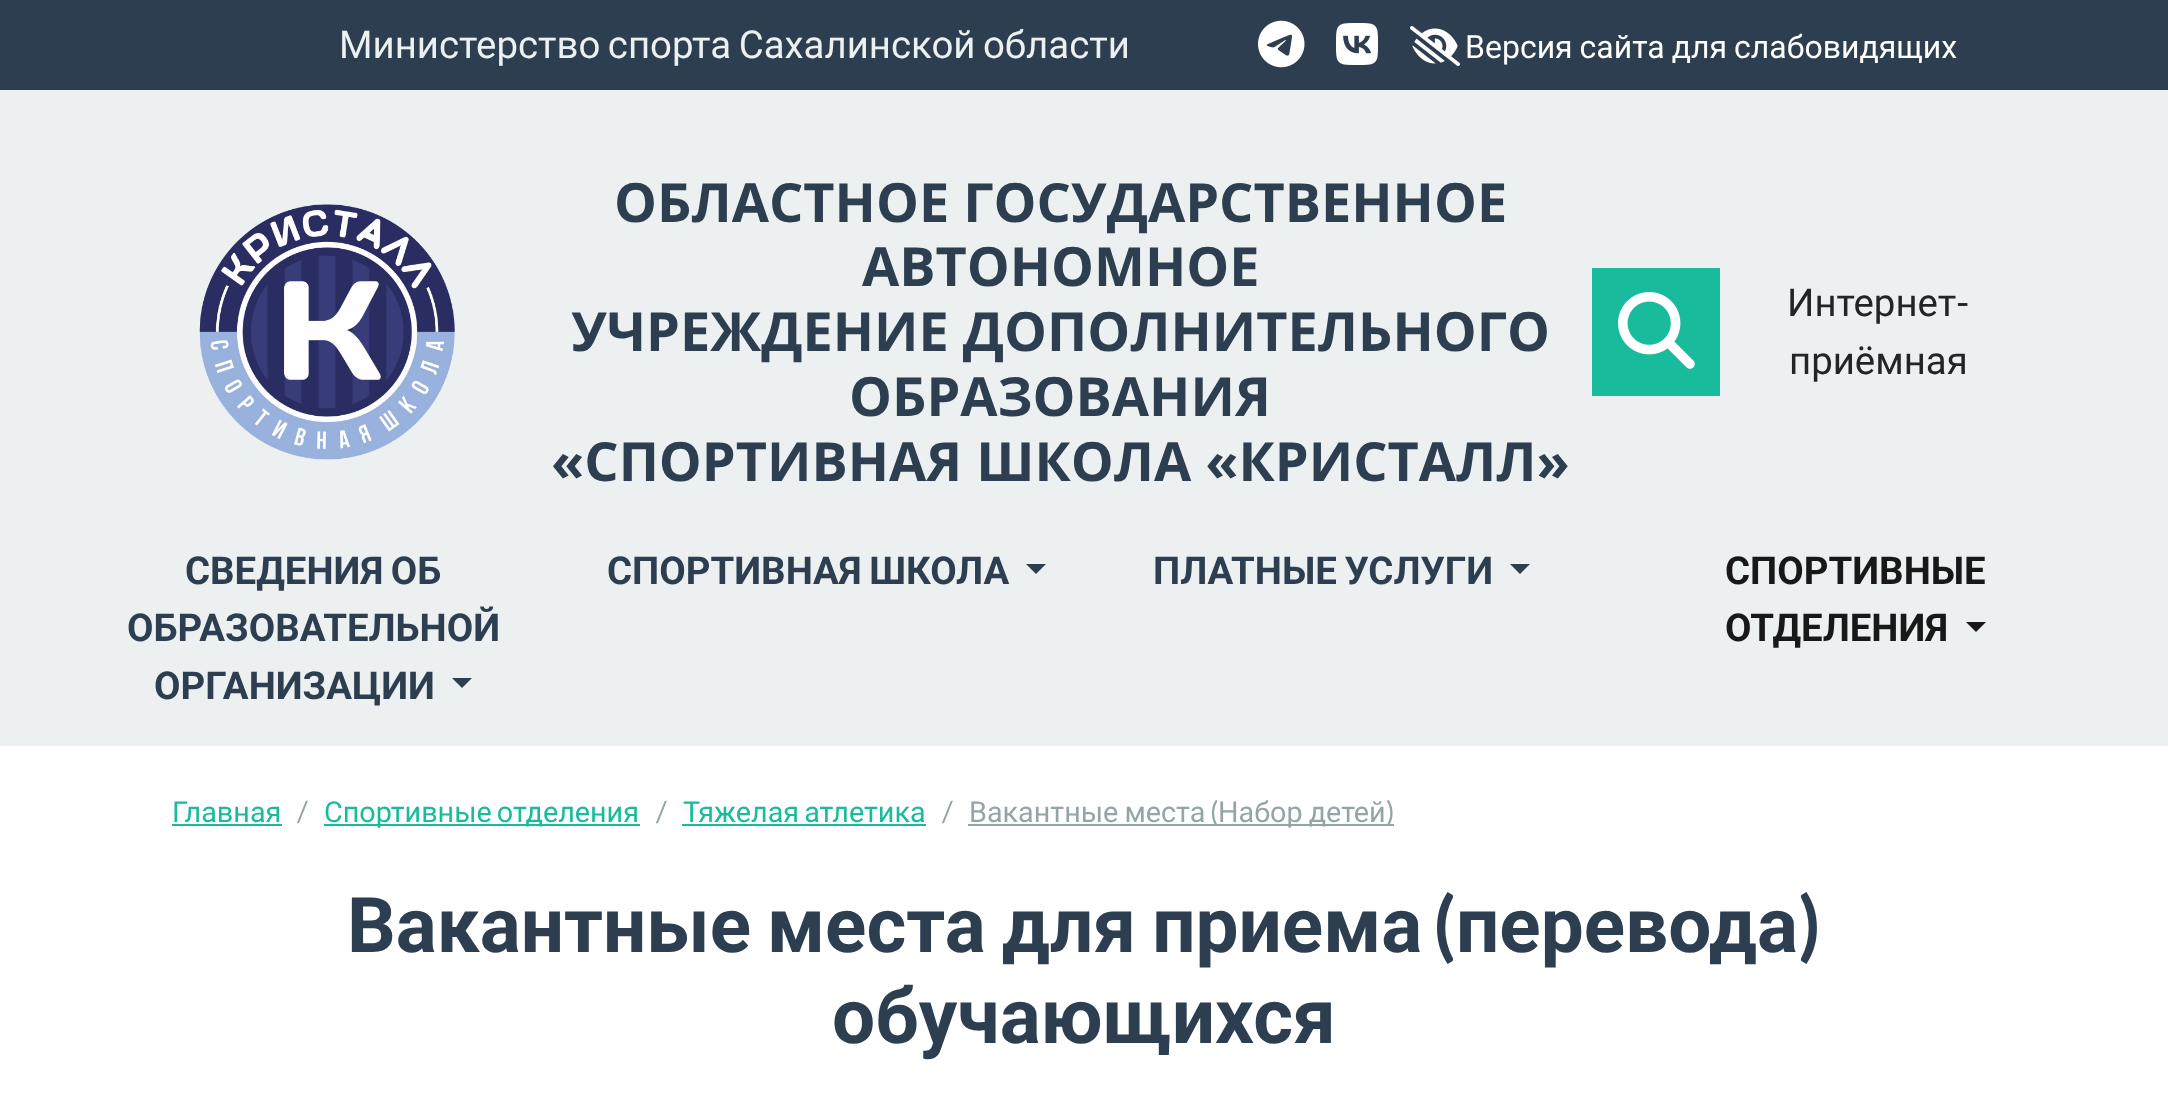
async function draw(canvas) {
  canvas.width = 2168
  canvas.height = 1110
  const ctx = canvas.getContext('2d')
  ctx.miterLimit = 4
  ctx.fontKerning = 'normal'
  async function loadImage(src) {
    const img = new Image()
    img.src = src
    await img.decode()
    return img
  }

  ctx.fillStyle = '#fff'
  ctx.fillRect(0, 0, 2168, 1110)
  ctx.fillStyle = '#2c3e50'
  ctx.fillRect(0, 0, 2168, 90)
  ctx.wordSpacing = '-2px'
  ctx.font = '38.4px Roboto'
  ctx.fillStyle = '#ecf0f1'
  ctx.fillText('Министерство спорта Сахалинской области', 339, 58)
  ctx.drawImage(await loadImage('image0.png'), 1258, 20, 47, 48)
  ctx.drawImage(await loadImage('image1.png'), 1336, 23, 42, 42)
  ctx.drawImage(await loadImage('image2.png'), 1410, 26, 50, 40)
  ctx.wordSpacing = '-1px'
  ctx.font = '32px Roboto'
  ctx.fillStyle = '#fff'
  ctx.fillText('Версия сайта для слабовидящих', 1465, 58)
  ctx.fillStyle = '#ecf0f1'
  ctx.fillRect(0, 90, 2168, 656)
  ctx.drawImage(await loadImage('image3.png'), 199, 204, 256, 256)
  ctx.wordSpacing = '0px'
  ctx.font = 'bold 54px Open Sans'
  ctx.fillStyle = '#2c3e50'
  ctx.fillText('ОБЛАСТНОЕ ГОСУДАРСТВЕННОЕ', 614, 222)
  ctx.fillText('АВТОНОМНОЕ', 862, 286)
  ctx.fillText('УЧРЕЖДЕНИЕ ДОПОЛНИТЕЛЬНОГО', 571, 351)
  ctx.fillText('ОБРАЗОВАНИЯ', 849, 416)
  ctx.fillText('«СПОРТИВНАЯ ШКОЛА «КРИСТАЛЛ»', 551, 481)
  ctx.fillStyle = '#18bc9c'
  ctx.fillRect(1592, 268, 128, 128)
  ctx.drawImage(await loadImage('image4.png'), 1618, 292, 77, 77)
  ctx.font = '38.4px Roboto'
  ctx.fillStyle = '#212529'
  ctx.fillText('Интернет', 1787, 316)
  ctx.font = '38.4px Lato'
  ctx.fillText('-', 1956, 316)
  ctx.font = '38.4px Roboto'
  ctx.fillText('приёмная', 1789, 374)
  ctx.wordSpacing = '-2px'
  ctx.font = 'bold 38.4px Roboto'
  ctx.fillStyle = '#2c3e50'
  ctx.fillText('СВЕДЕНИЯ ОБ', 185, 584)
  ctx.wordSpacing = '0px'
  ctx.fillText('ОБРАЗОВАТЕЛЬНОЙ', 127, 641)
  ctx.fillText('ОРГАНИЗАЦИИ', 154, 699)
  ctx.beginPath()
  ctx.moveTo(452, 678)
  ctx.lineTo(472, 678)
  ctx.lineTo(462, 688)
  ctx.closePath()
  ctx.fill()
  ctx.wordSpacing = '-2px'
  ctx.fillText('СПОРТИВНАЯ ШКОЛА', 607, 584)
  ctx.beginPath()
  ctx.moveTo(1026, 564)
  ctx.lineTo(1046, 564)
  ctx.lineTo(1036, 574)
  ctx.closePath()
  ctx.fill()
  ctx.fillText('ПЛАТНЫЕ УСЛУГИ', 1153, 584)
  ctx.beginPath()
  ctx.moveTo(1510, 564)
  ctx.lineTo(1530, 564)
  ctx.lineTo(1520, 574)
  ctx.closePath()
  ctx.fill()
  ctx.wordSpacing = '0px'
  ctx.fillStyle = '#181818'
  ctx.fillText('СПОРТИВНЫЕ', 1725, 584)
  ctx.fillText('ОТДЕЛЕНИЯ', 1725, 641)
  ctx.beginPath()
  ctx.moveTo(1966, 622)
  ctx.lineTo(1986, 622)
  ctx.lineTo(1976, 632)
  ctx.closePath()
  ctx.fill()
  ctx.font = '28.75px Roboto'
  ctx.fillStyle = '#18bc9c'
  ctx.fillText('Главная', 172, 822)
  ctx.fillRect(172, 824, 110, 2)
  ctx.font = '28.75px Lato'
  ctx.fillStyle = '#95a5a6'
  ctx.fillText('/', 297, 822)
  ctx.fillStyle = '#18bc9c'
  ctx.fillRect(324, 824, 316, 2)
  ctx.wordSpacing = '-2px'
  ctx.font = '28.75px Roboto'
  ctx.fillText('Спортивные отделения', 324, 822)
  ctx.wordSpacing = '0px'
  ctx.font = '28.75px Lato'
  ctx.fillStyle = '#95a5a6'
  ctx.fillText('/', 656, 822)
  ctx.wordSpacing = '-2px'
  ctx.font = '28.75px Roboto'
  ctx.fillStyle = '#18bc9c'
  ctx.fillText('Тяжелая атлетика', 683, 822)
  ctx.fillRect(682, 824, 244, 2)
  ctx.wordSpacing = '0px'
  ctx.font = '28.75px Lato'
  ctx.fillStyle = '#95a5a6'
  ctx.fillText('/', 942, 822)
  ctx.wordSpacing = '-1px'
  ctx.font = '28.75px Roboto'
  ctx.fillText('Вакантные места', 969, 822)
  ctx.fillRect(968, 824, 426, 2)
  ctx.wordSpacing = '0px'
  ctx.font = '28.75px Lato'
  ctx.fillText('(', 1210, 822)
  ctx.wordSpacing = '-1px'
  ctx.font = '28.75px Roboto'
  ctx.fillText('Набор детей', 1218, 822)
  ctx.wordSpacing = '0px'
  ctx.font = '28.75px Lato'
  ctx.fillText(')', 1386, 822)
  ctx.wordSpacing = '-3px'
  ctx.font = 'bold 76.5px Roboto'
  ctx.fillStyle = '#2c3e50'
  ctx.fillText('Вакантные места для приема', 347, 952)
  ctx.wordSpacing = '0px'
  ctx.font = 'bold 76.5px Lato'
  ctx.fillText('(', 1433, 952)
  ctx.font = 'bold 76.5px Roboto'
  ctx.fillText('перевода', 1456, 952)
  ctx.font = 'bold 76.5px Lato'
  ctx.fillText(')', 1798, 952)
  ctx.font = 'bold 76.5px Roboto'
  ctx.fillText('обучающихся', 832, 1043)
}

draw(document.querySelector('canvas'))
